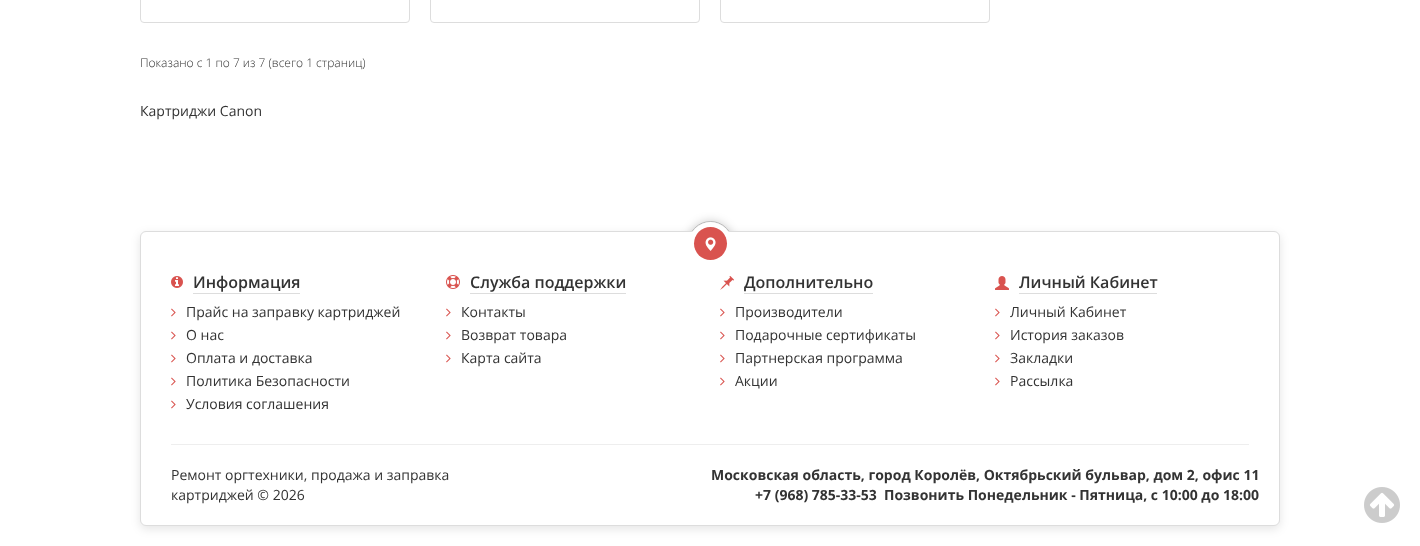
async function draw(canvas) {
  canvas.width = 1420
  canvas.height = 546
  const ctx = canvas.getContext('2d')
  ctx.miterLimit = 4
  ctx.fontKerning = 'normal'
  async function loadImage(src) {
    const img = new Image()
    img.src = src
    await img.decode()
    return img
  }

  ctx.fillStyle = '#fff'
  ctx.fillRect(0, 0, 1420, 546)
  ctx.beginPath()
  ctx.roundRect(140.5, -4.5, 269, 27, 3.5)
  ctx.strokeStyle = '#ddd'
  ctx.stroke()
  ctx.beginPath()
  ctx.roundRect(430.5, -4.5, 269, 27, 3.5)
  ctx.stroke()
  ctx.beginPath()
  ctx.roundRect(720.5, -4.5, 269, 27, 3.5)
  ctx.stroke()
  ctx.font = '300 12px Open Sans'
  ctx.fillStyle = '#333'
  ctx.fillText('Показано с 1 по 7 из 7 (всего 1 страниц)', 140, 67)
  ctx.font = '14px Open Sans'
  ctx.fillText('Картриджи Canon', 140, 116)
  ctx.fillStyle = '#00000033'
  ctx.filter = 'blur(5px)'
  ctx.beginPath()
  ctx.roundRect(688, 221, 45, 45, 22.5)
  ctx.fill()
  ctx.filter = 'none'
  ctx.beginPath()
  ctx.arc(710.5, 243.5, 22, 0, 2 * Math.PI)
  ctx.strokeStyle = '#bbb'
  ctx.stroke()
  ctx.fillStyle = '#0000001a'
  ctx.filter = 'blur(5px)'
  ctx.beginPath()
  ctx.roundRect(140, 234, 1140, 295, 6)
  ctx.fill()
  ctx.filter = 'none'
  ctx.fillStyle = '#fff'
  ctx.beginPath()
  ctx.roundRect(140.5, 231.5, 1139, 294, 5.5)
  ctx.fill()
  ctx.strokeStyle = '#ddd'
  ctx.stroke()
  ctx.beginPath()
  ctx.arc(710.5, 243.5, 21.5, 0, 2 * Math.PI)
  ctx.fill()
  ctx.fillStyle = '#d9534f'
  ctx.beginPath()
  ctx.arc(710.5, 243.5, 16.5, 0, 2 * Math.PI)
  ctx.fill()
  ctx.drawImage(await loadImage('image0.png'), 705, 237, 11, 14)
  ctx.drawImage(await loadImage('image1.png'), 171, 276, 12, 12)
  ctx.font = '600 16px Open Sans'
  ctx.fillStyle = '#333'
  ctx.fillText('Информация', 193, 288)
  ctx.fillStyle = '#ddd'
  ctx.fillRect(193, 293, 107, 1)
  ctx.drawImage(await loadImage('image2.png'), 171, 308, 5, 9)
  ctx.font = '14px Open Sans'
  ctx.fillStyle = '#333'
  ctx.fillText('Прайс на заправку картриджей', 186, 317)
  ctx.drawImage(await loadImage('image2.png'), 171, 331, 5, 9)
  ctx.fillText('О нас', 186, 340)
  ctx.drawImage(await loadImage('image2.png'), 171, 354, 5, 9)
  ctx.fillText('Оплата и доставка', 186, 363)
  ctx.drawImage(await loadImage('image2.png'), 171, 377, 5, 9)
  ctx.fillText('Политика Безопасности', 186, 386)
  ctx.drawImage(await loadImage('image2.png'), 171, 400, 5, 9)
  ctx.fillText('Условия соглашения', 186, 409)
  ctx.drawImage(await loadImage('image3.png'), 446, 275, 14, 14)
  ctx.font = '600 16px Open Sans'
  ctx.fillText('Служба поддержки', 470, 288)
  ctx.fillStyle = '#ddd'
  ctx.fillRect(470, 293, 156, 1)
  ctx.drawImage(await loadImage('image2.png'), 446, 308, 5, 9)
  ctx.font = '14px Open Sans'
  ctx.fillStyle = '#333'
  ctx.fillText('Контакты', 461, 317)
  ctx.drawImage(await loadImage('image2.png'), 446, 331, 5, 9)
  ctx.fillText('Возврат товара', 461, 340)
  ctx.drawImage(await loadImage('image2.png'), 446, 354, 5, 9)
  ctx.fillText('Карта сайта', 461, 363)
  ctx.drawImage(await loadImage('image4.png'), 720, 276, 14, 14)
  ctx.font = '600 16px Open Sans'
  ctx.fillText('Дополнительно', 744, 288)
  ctx.fillStyle = '#ddd'
  ctx.fillRect(744, 293, 129, 1)
  ctx.drawImage(await loadImage('image2.png'), 720, 308, 5, 9)
  ctx.font = '14px Open Sans'
  ctx.fillStyle = '#333'
  ctx.fillText('Производители', 735, 317)
  ctx.drawImage(await loadImage('image2.png'), 720, 331, 5, 9)
  ctx.fillText('Подарочные сертификаты', 735, 340)
  ctx.drawImage(await loadImage('image2.png'), 720, 354, 5, 9)
  ctx.fillText('Партнерская программа', 735, 363)
  ctx.drawImage(await loadImage('image2.png'), 720, 377, 5, 9)
  ctx.fillText('Акции', 735, 386)
  ctx.drawImage(await loadImage('image5.png'), 995, 276, 14, 14)
  ctx.font = '600 16px Open Sans'
  ctx.fillText('Личный Кабинет', 1019, 288)
  ctx.fillStyle = '#ddd'
  ctx.fillRect(1019, 293, 138, 1)
  ctx.drawImage(await loadImage('image2.png'), 995, 308, 5, 9)
  ctx.font = '14px Open Sans'
  ctx.fillStyle = '#333'
  ctx.fillText('Личный Кабинет', 1010, 317)
  ctx.drawImage(await loadImage('image2.png'), 995, 331, 5, 9)
  ctx.fillText('История заказов', 1010, 340)
  ctx.drawImage(await loadImage('image2.png'), 995, 354, 5, 9)
  ctx.fillText('Закладки', 1010, 363)
  ctx.drawImage(await loadImage('image2.png'), 995, 377, 5, 9)
  ctx.fillText('Рассылка', 1010, 386)
  ctx.fillStyle = '#eee'
  ctx.fillRect(171, 444, 1078, 1)
  ctx.fillStyle = '#333'
  ctx.fillText('Ремонт оргтехники, продажа и заправка', 171, 480)
  ctx.fillText('картриджей © 2026', 171, 500)
  ctx.font = 'bold 14px Open Sans'
  ctx.fillText('Московская область, город Королёв, Октябрьский бульвар, дом 2, офис 11', 711, 480)
  ctx.fillText('+7 (968) 785-33-53', 755, 500)
  ctx.fillText('Позвонить Понедельник - Пятница, с 10:00 до 18:00', 884, 500)
  ctx.drawImage(await loadImage('image6.png'), 1364, 487, 36, 36)
}

draw(document.querySelector('canvas'))
